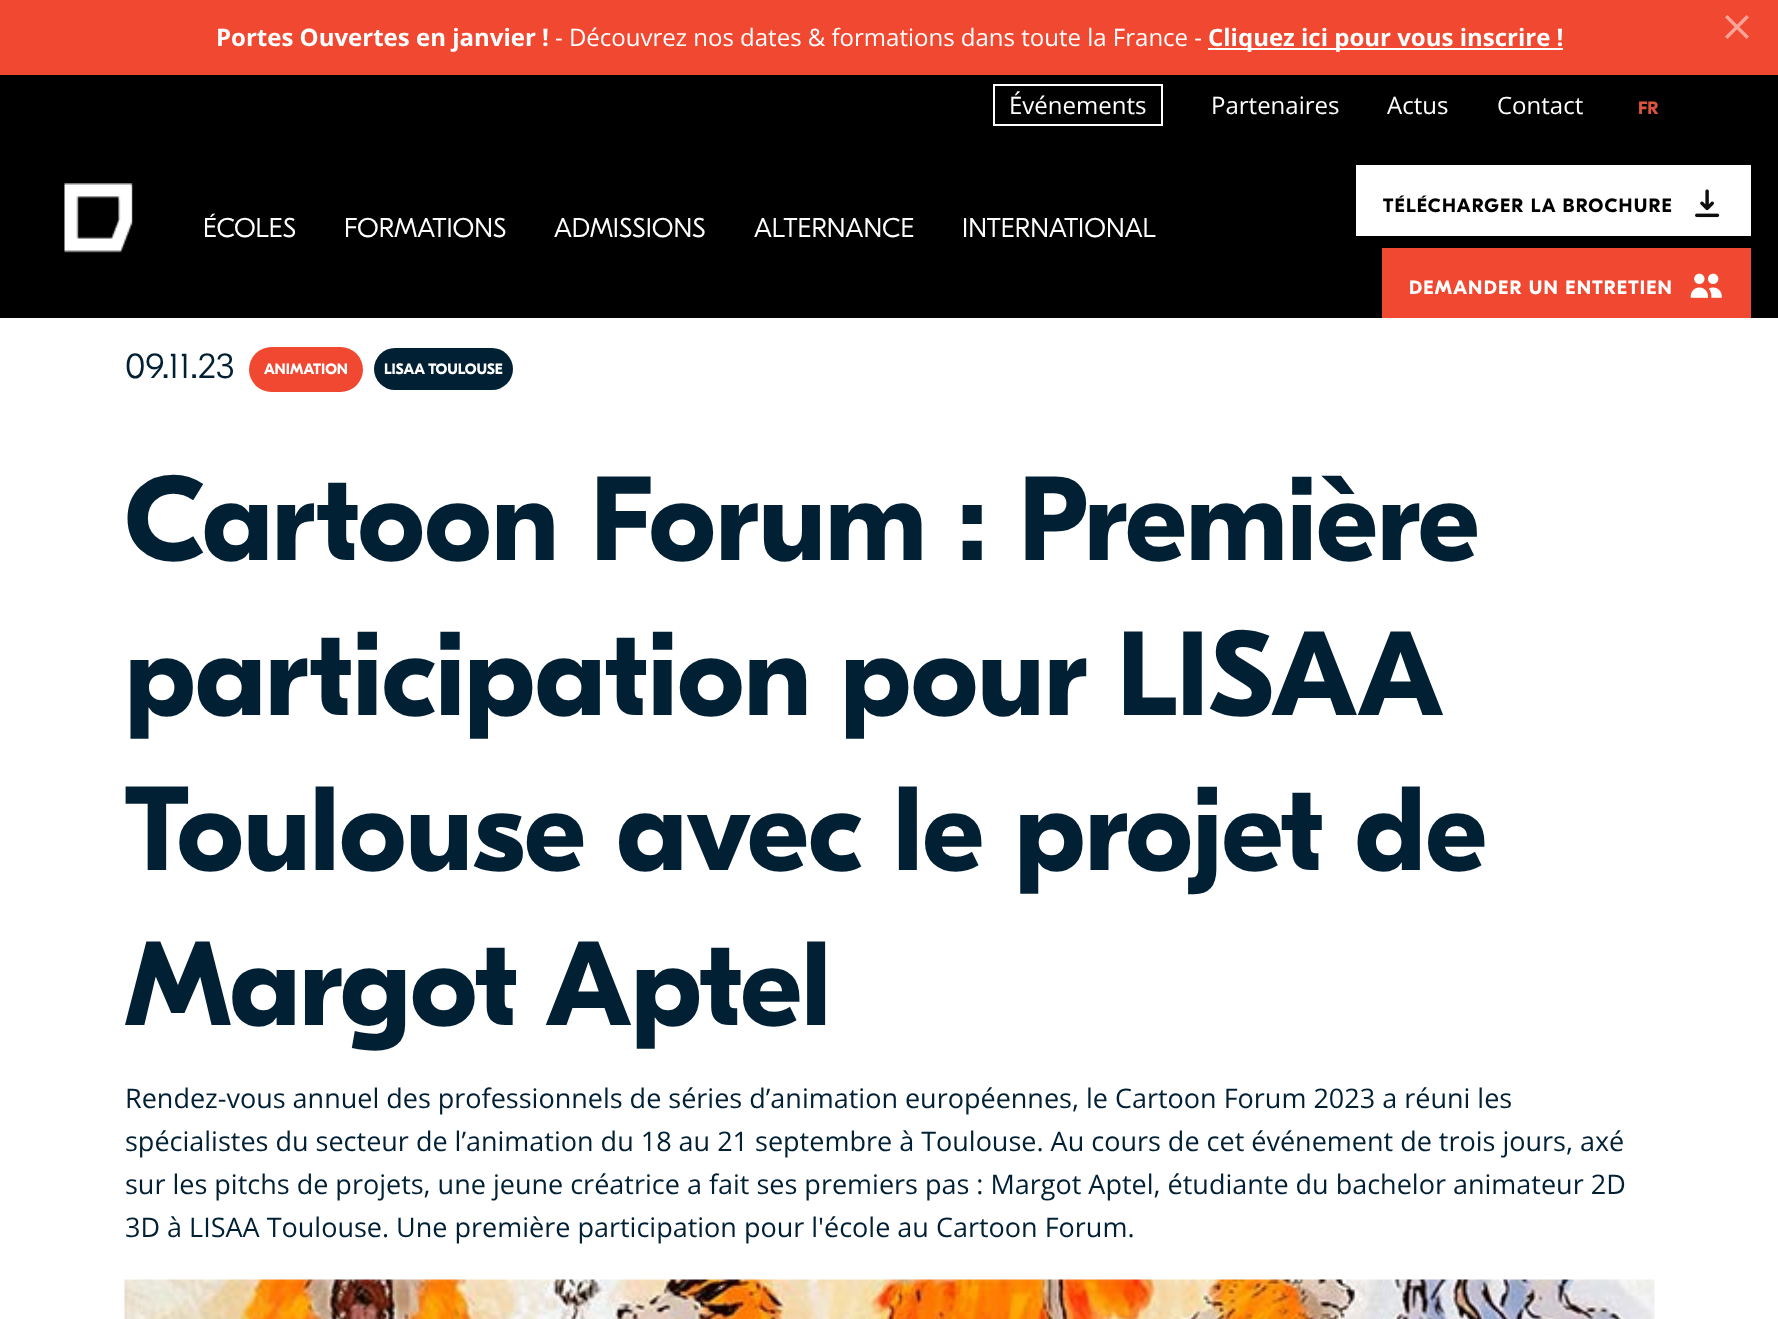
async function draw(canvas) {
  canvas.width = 1778
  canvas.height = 1319
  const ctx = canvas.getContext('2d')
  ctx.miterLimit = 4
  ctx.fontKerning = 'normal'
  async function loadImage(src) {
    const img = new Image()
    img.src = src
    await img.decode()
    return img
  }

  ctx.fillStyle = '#fff'
  ctx.fillRect(0, 0, 1778, 1319)
  ctx.fillStyle = '#f14831'
  ctx.fillRect(0, 0, 1778, 75)
  ctx.font = 'bold 24px Open Sans'
  ctx.fillStyle = '#fff'
  ctx.fillText('Portes Ouvertes en janvier !', 216, 46)
  ctx.font = '24px Open Sans'
  ctx.fillText('- Découvrez nos dates & formations dans toute la France -', 555, 46)
  ctx.fillRect(1208, 48, 355, 2)
  ctx.font = 'bold 24px Open Sans'
  ctx.fillText('Cliquez ici pour vous inscrire !', 1208, 46)
  ctx.drawImage(await loadImage('image0.png'), 1725, 15, 24, 24)
  ctx.fillStyle = '#000'
  ctx.fillRect(0, 75, 1778, 243)
  ctx.strokeStyle = '#fff'
  ctx.lineWidth = 2
  ctx.strokeRect(994, 85, 168, 40)
  ctx.font = '24px Open Sans'
  ctx.fillStyle = '#fff'
  ctx.fillText('Événements', 1009, 114)
  ctx.fillText('Partenaires', 1211, 114)
  ctx.fillText('Actus', 1387, 114)
  ctx.fillText('Contact', 1497, 114)
  ctx.font = 'bold 18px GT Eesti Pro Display'
  ctx.fillStyle = '#de553e'
  ctx.fillText('FR', 1638, 114)
  ctx.drawImage(await loadImage('image1.png'), 64, 183, 69, 70)
  ctx.font = '300 27px GT Eesti Pro Display'
  ctx.fillStyle = '#fff'
  ctx.fillText('ÉCOLES', 203, 237)
  ctx.fillText('FORMATIONS', 344, 237)
  ctx.fillText('ADMISSIONS', 554, 237)
  ctx.fillText('ALTERNANCE', 754, 237)
  ctx.fillText('INTERNATIONAL', 962, 237)
  ctx.fillRect(1356, 165, 395, 71)
  ctx.letterSpacing = '1.2px'
  ctx.font = 'bold 19.25px GT Eesti Pro Display'
  ctx.fillStyle = '#000'
  ctx.fillText('TÉLÉCHARGER LA BROCHURE', 1383, 212)
  ctx.drawImage(await loadImage('image2.png'), 1695, 189, 25, 29)
  ctx.fillStyle = '#f14831'
  ctx.fillRect(1382, 248, 369, 70)
  ctx.fillStyle = '#fff'
  ctx.fillText('DEMANDER UN ENTRETIEN', 1409, 294)
  ctx.drawImage(await loadImage('image3.png'), 1690, 273, 32, 25)
  ctx.letterSpacing = '0px'
  ctx.font = '300 36px GT Eesti Pro Display'
  ctx.fillStyle = '#012034'
  ctx.fillText('09.11.23', 125, 378)
  ctx.fillStyle = '#f14831'
  ctx.beginPath()
  ctx.roundRect(249, 347, 114, 45, 22.5)
  ctx.fill()
  ctx.font = 'bold 15px GT Eesti Pro Display'
  ctx.fillStyle = '#fff'
  ctx.fillText('ANIMATION', 264, 374)
  ctx.fillStyle = '#012034'
  ctx.beginPath()
  ctx.roundRect(374, 348, 139, 42, 21)
  ctx.fill()
  ctx.fillStyle = '#fff'
  ctx.fillText('LISAA TOULOUSE', 384, 374)
  ctx.font = 'bold 119.25px GT Eesti Pro Display'
  ctx.fillStyle = '#012034'
  ctx.fillText('Cartoon Forum : Première', 125, 560)
  ctx.wordSpacing = '-2px'
  ctx.fillText('participation pour LISAA', 125, 715)
  ctx.wordSpacing = '0px'
  ctx.fillText('Toulouse avec le projet de', 125, 870)
  ctx.fillText('Margot Aptel', 125, 1025)
  ctx.font = '27px Open Sans'
  ctx.fillText('Rendez-vous annuel des professionnels de séries d’animation européennes, le Cartoon Forum 2023 a réuni les', 125, 1108)
  ctx.fillText('spécialistes du secteur de l’animation du 18 au 21 septembre à Toulouse. Au cours de cet événement de trois jours, axé', 125, 1151)
  ctx.fillText('sur les pitchs de projets, une jeune créatrice a fait ses premiers pas : Margot Aptel, étudiante du bachelor animateur 2D', 125, 1194)
  ctx.fillText('3D à LISAA Toulouse. Une première participation pour l\'école au Cartoon Forum.', 125, 1237)
  ctx.drawImage(await loadImage('image4.png'), 124, 1279, 1531, 40)
}

draw(document.querySelector('canvas'))
